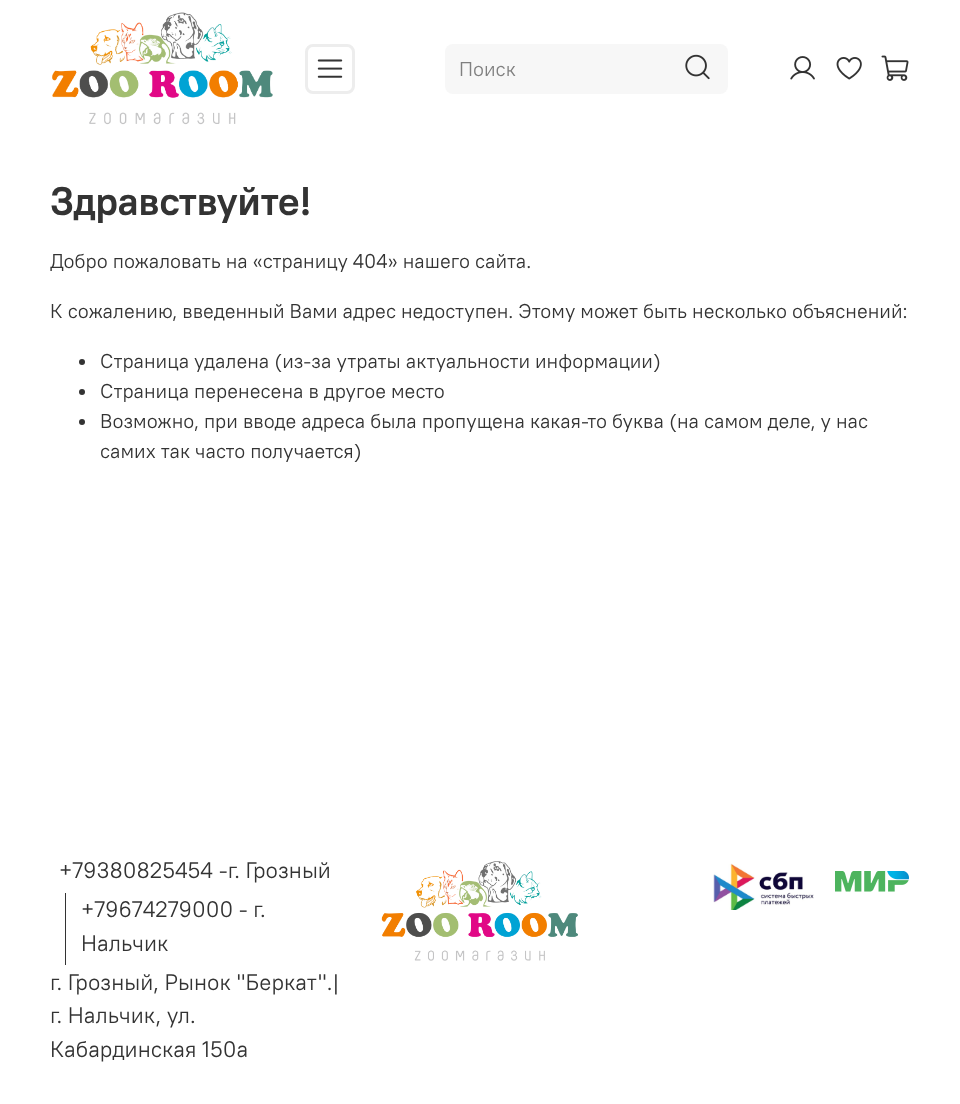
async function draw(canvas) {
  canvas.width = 960
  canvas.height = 1104
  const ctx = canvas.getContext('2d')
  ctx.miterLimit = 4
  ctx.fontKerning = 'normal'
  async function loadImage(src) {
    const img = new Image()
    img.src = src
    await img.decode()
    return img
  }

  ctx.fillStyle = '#fff'
  ctx.fillRect(0, 0, 960, 1104)
  ctx.drawImage(await loadImage('image0.png'), 52, 12, 221, 113)
  ctx.beginPath()
  ctx.roundRect(306.5, 45.5, 47, 47, 6.5)
  ctx.strokeStyle = '#ededed'
  ctx.lineWidth = 3
  ctx.stroke()
  ctx.drawImage(await loadImage('image1.png'), 317, 59, 26, 19)
  ctx.fillStyle = '#f7f7f7'
  ctx.beginPath()
  ctx.roundRect(445, 44, 283, 50, 8)
  ctx.fill()
  ctx.font = '20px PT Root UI'
  ctx.fillStyle = '#808080'
  ctx.fillText('Поиск', 459, 76)
  ctx.drawImage(await loadImage('image2.png'), 685, 54, 25, 26)
  ctx.drawImage(await loadImage('image3.png'), 790, 56, 25, 24)
  ctx.drawImage(await loadImage('image4.png'), 836, 57, 26, 23)
  ctx.drawImage(await loadImage('image5.png'), 881, 55, 28, 26)
  ctx.font = 'bold 40px PT Root UI'
  ctx.fillStyle = '#333'
  ctx.fillText('Здравствуйте!', 50, 215)
  ctx.font = '20px PT Root UI'
  ctx.fillText('Добро пожаловать на «страницу 404» нашего сайта.', 50, 268)
  ctx.fillText('К сожалению, введенный Вами адрес недоступен. Этому может быть несколько объяснений:', 50, 318)
  ctx.beginPath()
  ctx.arc(82, 362, 3, 0, 2 * Math.PI)
  ctx.fill()
  ctx.fillText('Страница удалена (из-за утраты актуальности информации)', 100, 368)
  ctx.beginPath()
  ctx.arc(82, 392, 3, 0, 2 * Math.PI)
  ctx.fill()
  ctx.fillText('Страница перенесена в другое место', 100, 398)
  ctx.beginPath()
  ctx.arc(82, 422, 3, 0, 2 * Math.PI)
  ctx.fill()
  ctx.fillText('Возможно, при вводе адреса была пропущена какая-то буква (на самом деле, у нас', 100, 428)
  ctx.fillText('самих так часто получается)', 100, 458)
  ctx.font = '22.5px PT Root UI'
  ctx.fillText('+79380825454 -г. Грозный', 59, 878)
  ctx.fillRect(65, 893, 1, 72)
  ctx.fillText('+79674279000 - г.', 81, 917)
  ctx.fillText('Нальчик', 81, 951)
  ctx.fillText('г. Грозный, Рынок "Беркат".|', 50, 990)
  ctx.fillText('г. Нальчик, ул.', 50, 1023)
  ctx.fillText('Кабардинская 150а', 50, 1057)
  ctx.drawImage(await loadImage('image6.png'), 381, 861, 197, 100)
  ctx.drawImage(await loadImage('image7.png'), 713, 863, 101, 47)
  ctx.drawImage(await loadImage('image8.png'), 835, 871, 74, 21)
}

draw(document.querySelector('canvas'))
